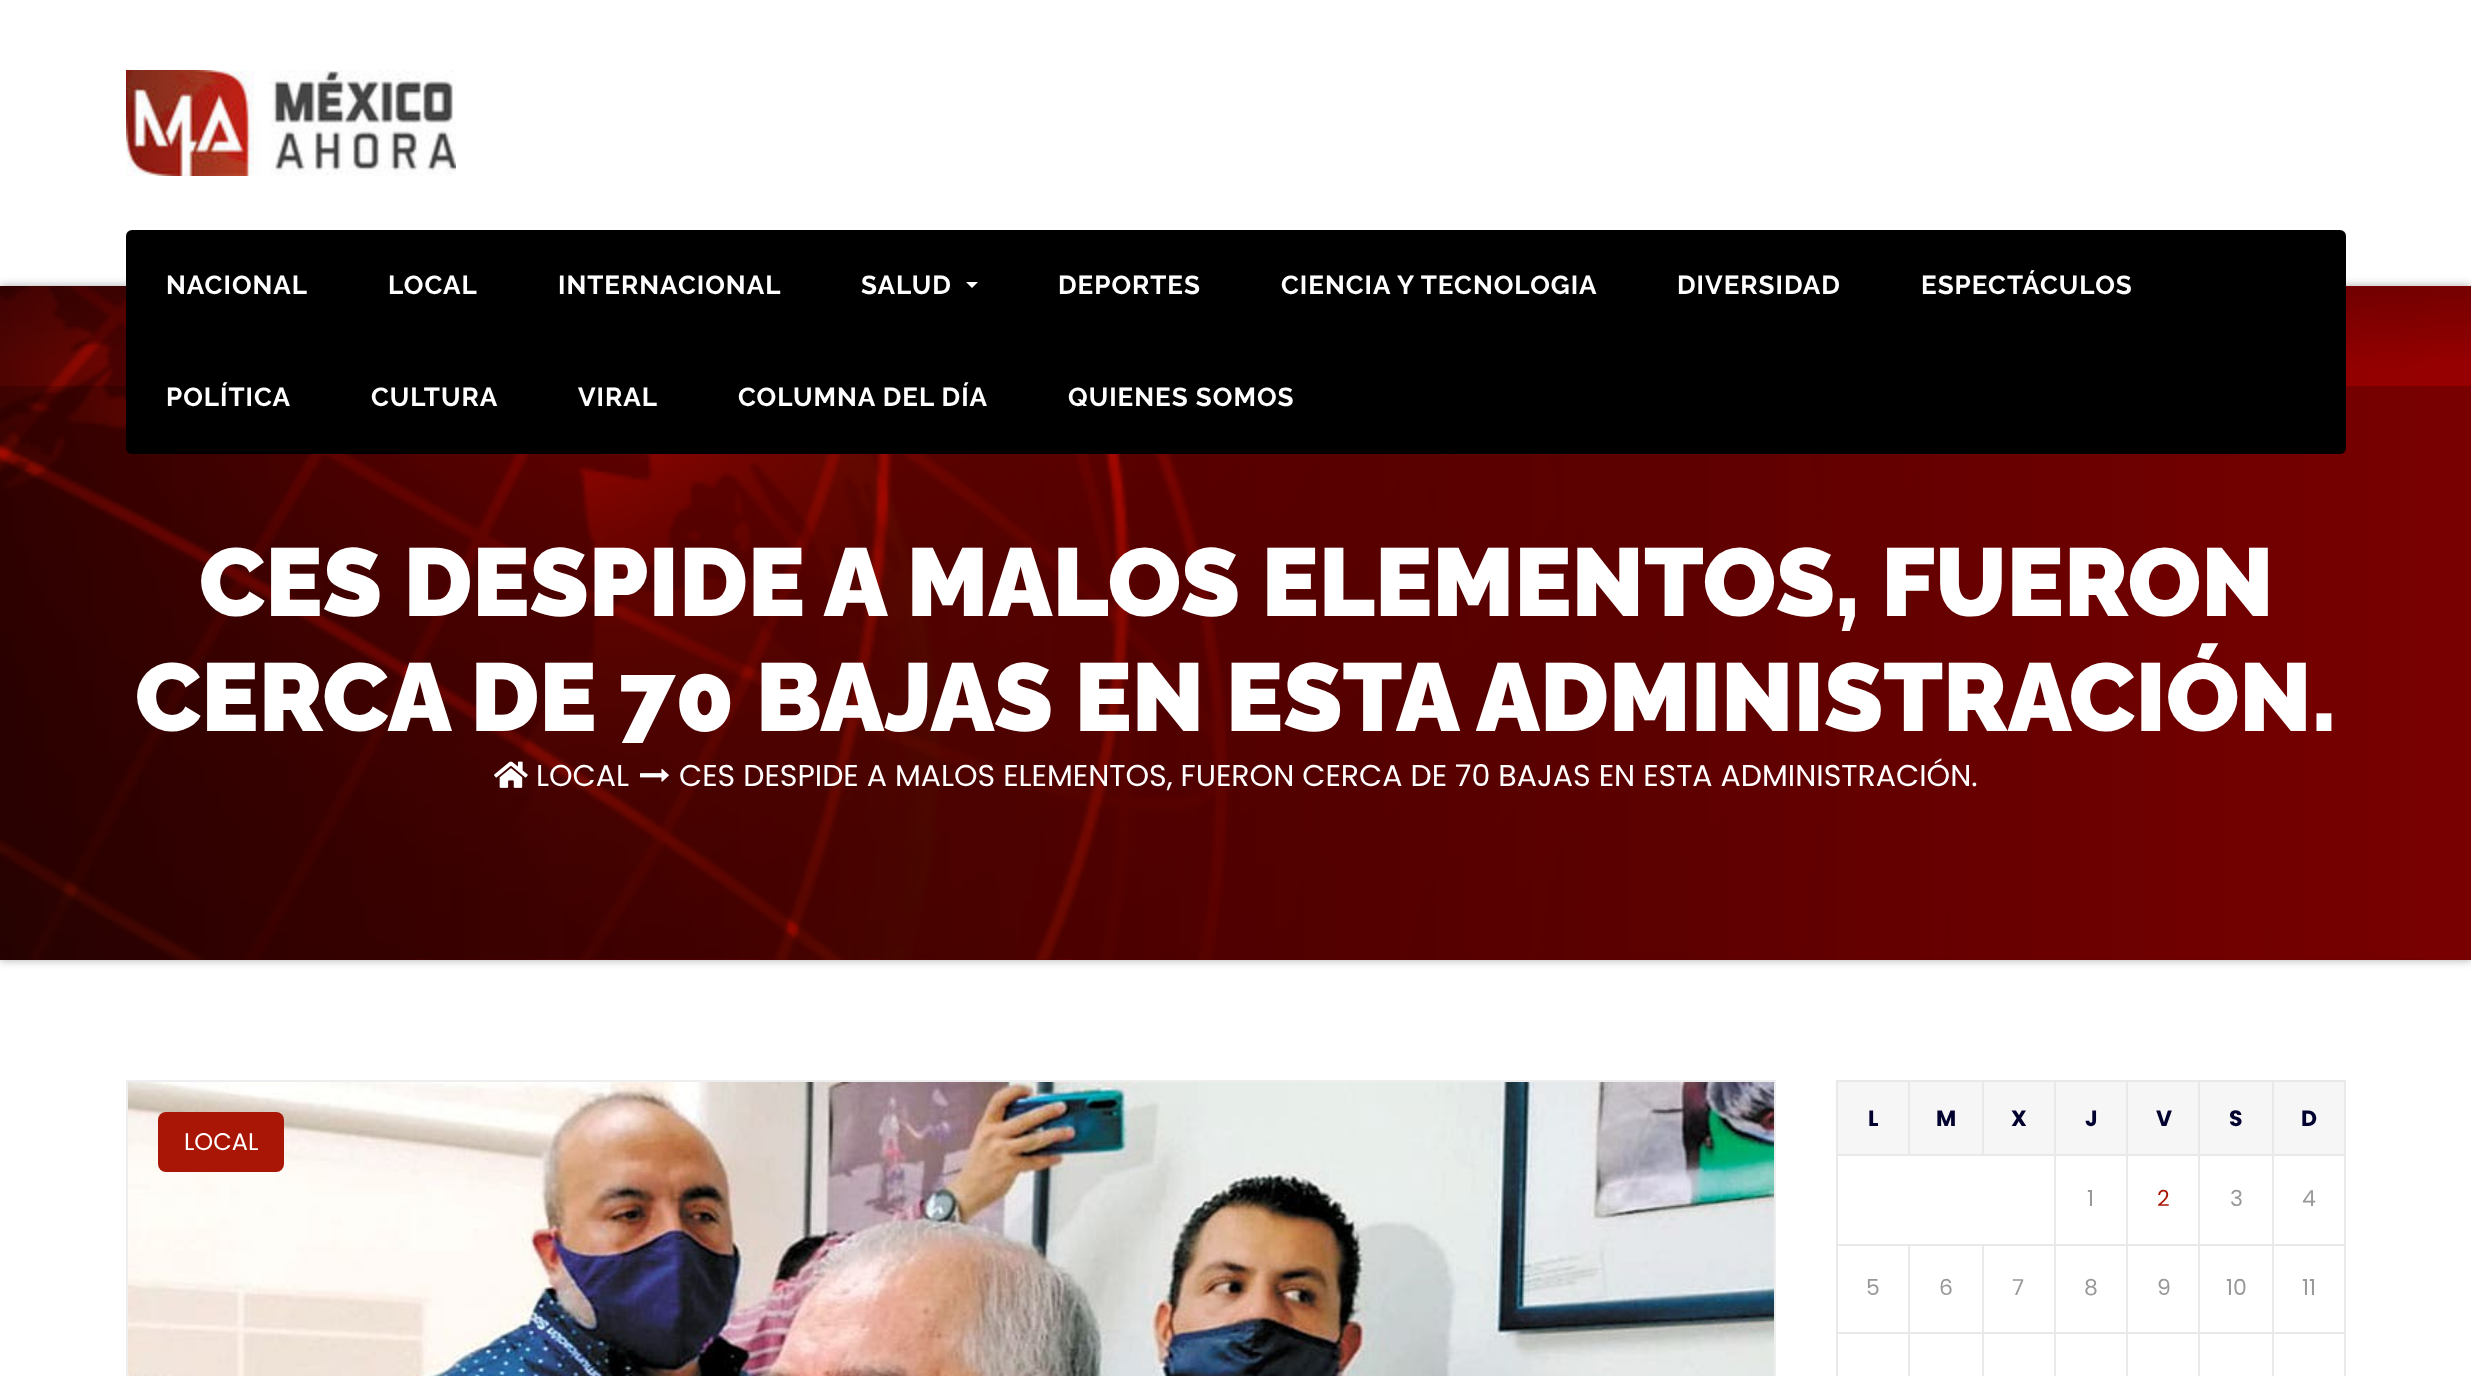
async function draw(canvas) {
  canvas.width = 2471
  canvas.height = 1376
  const ctx = canvas.getContext('2d')
  ctx.miterLimit = 4
  ctx.fontKerning = 'normal'
  async function loadImage(src) {
    const img = new Image()
    img.src = src
    await img.decode()
    return img
  }

  ctx.fillStyle = '#fff'
  ctx.fillRect(0, 0, 2471, 1376)
  ctx.drawImage(await loadImage('image0.png'), 126, 70, 330, 106)
  ctx.fillStyle = '#aaa'
  ctx.filter = 'blur(5px)'
  ctx.beginPath()
  ctx.rect(0, 286, 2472, 674)
  ctx.fill()
  ctx.filter = 'none'
  ctx.drawImage(await loadImage('image1.png'), 0, 286, 2471, 674)
  ctx.fillStyle = '#00000033'
  ctx.fillRect(0, 386, 2471, 574)
  ctx.fillStyle = '#000'
  ctx.beginPath()
  ctx.roundRect(126, 230, 2220, 224, 6)
  ctx.fill()
  ctx.letterSpacing = '1px'
  ctx.font = 'bold 26px Raleway'
  ctx.fillStyle = '#fff'
  ctx.fillText('NACIONAL', 166, 294)
  ctx.fillText('LOCAL', 388, 294)
  ctx.fillText('INTERNACIONAL', 558, 294)
  ctx.fillText('SALUD', 861, 294)
  ctx.beginPath()
  ctx.moveTo(966, 282)
  ctx.lineTo(978, 282)
  ctx.lineTo(972, 288)
  ctx.closePath()
  ctx.fill()
  ctx.fillText('DEPORTES', 1058, 294)
  ctx.fillText('CIENCIA Y TECNOLOGIA', 1281, 294)
  ctx.fillText('DIVERSIDAD', 1677, 294)
  ctx.fillText('ESPECTÁCULOS', 1921, 294)
  ctx.fillText('POLÍTICA', 166, 406)
  ctx.fillText('CULTURA', 371, 406)
  ctx.fillText('VIRAL', 578, 406)
  ctx.fillText('COLUMNA DEL DÍA', 738, 406)
  ctx.fillText('QUIENES SOMOS', 1068, 406)
  ctx.letterSpacing = '0px'
  ctx.font = '900 96px Raleway'
  ctx.fillText('CES DESPIDE A MALOS ELEMENTOS, FUERON', 199, 616)
  ctx.fillText('CERCA DE 70 BAJAS EN ESTA ADMINISTRACIÓN.', 135, 731)
  ctx.drawImage(await loadImage('image2.png'), 494, 761, 34, 27)
  ctx.font = '30px Poppins'
  ctx.fillText('LOCAL', 536, 786)
  ctx.drawImage(await loadImage('image3.png'), 640, 768, 29, 14)
  ctx.fillText('CES DESPIDE A MALOS ELEMENTOS, FUERON CERCA DE 70 BAJAS EN ESTA ADMINISTRACIÓN.', 679, 786)
  ctx.strokeStyle = '#eee'
  ctx.lineWidth = 2
  ctx.strokeRect(127, 1081, 1648, 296)
  ctx.drawImage(await loadImage('image4.png'), 128, 1082, 1646, 294)
  ctx.fillStyle = '#a91605'
  ctx.beginPath()
  ctx.roundRect(158, 1112, 126, 60, 8)
  ctx.fill()
  ctx.font = '24px Poppins'
  ctx.fillStyle = '#fff'
  ctx.fillText('LOCAL', 184, 1150)
  ctx.fillStyle = '#e9e9e9'
  ctx.fillRect(1836, 1080, 510, 2)
  ctx.fillRect(2344, 1080, 2, 296)
  ctx.fillRect(1836, 1080, 2, 296)
  ctx.fillStyle = '#f6f6f6'
  ctx.fillRect(1838, 1082, 70, 72)
  ctx.font = 'bold 22px Poppins'
  ctx.fillStyle = '#01012f'
  ctx.fillText('L', 1868, 1126)
  ctx.fillStyle = '#f6f6f6'
  ctx.fillRect(1910, 1082, 72, 72)
  ctx.fillStyle = '#e9e9e9'
  ctx.fillRect(2272, 1154, 74, 2)
  ctx.fillRect(2272, 1244, 74, 2)
  ctx.fillRect(2272, 1332, 74, 2)
  ctx.fillRect(2272, 1332, 2, 44)
  ctx.fillRect(2198, 1332, 76, 2)
  ctx.fillRect(2272, 1244, 2, 90)
  ctx.fillRect(2198, 1244, 76, 2)
  ctx.fillRect(2272, 1154, 2, 92)
  ctx.fillRect(2198, 1154, 76, 2)
  ctx.fillRect(2198, 1332, 2, 44)
  ctx.fillRect(2126, 1332, 74, 2)
  ctx.fillRect(2198, 1244, 2, 90)
  ctx.fillRect(2126, 1244, 74, 2)
  ctx.fillRect(2198, 1154, 2, 92)
  ctx.fillRect(2126, 1154, 74, 2)
  ctx.fillRect(2126, 1332, 2, 44)
  ctx.fillRect(2054, 1332, 74, 2)
  ctx.fillRect(2126, 1244, 2, 90)
  ctx.fillRect(2054, 1244, 74, 2)
  ctx.fillRect(2126, 1154, 2, 92)
  ctx.fillRect(2054, 1154, 74, 2)
  ctx.fillRect(2054, 1332, 2, 44)
  ctx.fillRect(1982, 1332, 74, 2)
  ctx.fillRect(2054, 1244, 2, 90)
  ctx.fillRect(1982, 1244, 74, 2)
  ctx.fillRect(2054, 1154, 2, 92)
  ctx.fillRect(1836, 1154, 220, 2)
  ctx.fillRect(1908, 1080, 2, 76)
  ctx.fillStyle = '#01012f'
  ctx.fillText('M', 1936, 1126)
  ctx.fillStyle = '#f6f6f6'
  ctx.fillRect(1984, 1082, 70, 72)
  ctx.fillStyle = '#e9e9e9'
  ctx.fillRect(1982, 1080, 2, 76)
  ctx.fillStyle = '#01012f'
  ctx.fillText('X', 2011, 1126)
  ctx.fillStyle = '#f6f6f6'
  ctx.fillRect(2056, 1082, 70, 72)
  ctx.fillStyle = '#e9e9e9'
  ctx.fillRect(2054, 1080, 2, 76)
  ctx.fillStyle = '#01012f'
  ctx.fillText('J', 2085, 1126)
  ctx.fillStyle = '#f6f6f6'
  ctx.fillRect(2128, 1082, 70, 72)
  ctx.fillStyle = '#e9e9e9'
  ctx.fillRect(2126, 1080, 2, 76)
  ctx.fillStyle = '#01012f'
  ctx.fillText('V', 2156, 1126)
  ctx.fillStyle = '#f6f6f6'
  ctx.fillRect(2200, 1082, 72, 72)
  ctx.fillStyle = '#e9e9e9'
  ctx.fillRect(2198, 1080, 2, 76)
  ctx.fillStyle = '#01012f'
  ctx.fillText('S', 2229, 1126)
  ctx.fillStyle = '#f6f6f6'
  ctx.fillRect(2274, 1082, 70, 72)
  ctx.fillStyle = '#e9e9e9'
  ctx.fillRect(2272, 1080, 2, 76)
  ctx.fillStyle = '#01012f'
  ctx.fillText('D', 2301, 1126)
  ctx.font = '22px Poppins'
  ctx.fillStyle = '#999'
  ctx.fillText('1', 2087, 1206)
  ctx.fillStyle = '#a91605'
  ctx.fillText('2', 2157, 1206)
  ctx.fillStyle = '#999'
  ctx.fillText('3', 2230, 1206)
  ctx.fillText('4', 2302, 1206)
  ctx.fillStyle = '#e9e9e9'
  ctx.fillRect(1982, 1332, 2, 44)
  ctx.fillRect(1908, 1332, 76, 2)
  ctx.fillRect(1982, 1244, 2, 90)
  ctx.fillRect(1908, 1244, 76, 2)
  ctx.fillRect(1908, 1332, 2, 44)
  ctx.fillRect(1836, 1332, 74, 2)
  ctx.fillRect(1908, 1244, 2, 90)
  ctx.fillRect(1836, 1244, 74, 2)
  ctx.fillStyle = '#999'
  ctx.fillText('5', 1866, 1295)
  ctx.fillText('6', 1939, 1295)
  ctx.fillText('7', 2012, 1295)
  ctx.fillText('8', 2084, 1295)
  ctx.fillText('9', 2157, 1295)
  ctx.fillText('10', 2226, 1295)
  ctx.fillText('11', 2302, 1295)
}

draw(document.querySelector('canvas'))
